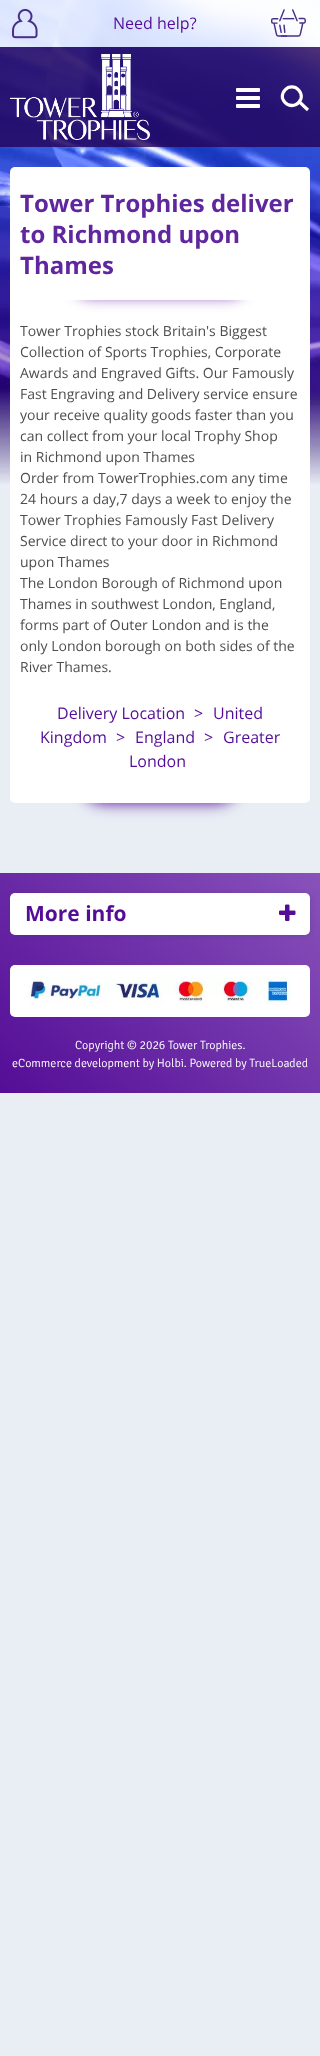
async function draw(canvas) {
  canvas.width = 320
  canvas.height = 2056
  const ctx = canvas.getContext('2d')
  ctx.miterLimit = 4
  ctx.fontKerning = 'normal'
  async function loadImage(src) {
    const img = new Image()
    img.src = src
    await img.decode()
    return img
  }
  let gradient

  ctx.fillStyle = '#e9eef5'
  ctx.fillRect(0, 0, 320, 2056)
  ctx.drawImage(await loadImage('image0.png'), 0, 0, 320, 484)
  ctx.fillStyle = '#ffffffcc'
  ctx.fillRect(0, 0, 320, 47)
  ctx.drawImage(await loadImage('image1.png'), 12, 8, 26, 31)
  ctx.font = '16px Open Sans'
  ctx.fillStyle = '#540d97'
  ctx.fillText('Need help?', 113, 29)
  ctx.drawImage(await loadImage('image2.png'), 271, 9, 35, 28)
  ctx.fillStyle = '#250156cc'
  ctx.fillRect(0, 47, 320, 100)
  ctx.drawImage(await loadImage('image3.png'), 10, 54, 140, 86)
  ctx.drawImage(await loadImage('image4.png'), 236, 88, 24, 20)
  ctx.drawImage(await loadImage('image5.png'), 280, 85, 29, 27)
  ctx.fillStyle = '#540d97'
  ctx.filter = 'blur(7.5px)'
  ctx.beginPath()
  ctx.roundRect(80, 753, 160, 50, 25)
  ctx.fill()
  ctx.filter = 'none'
  ctx.fillStyle = '#fff'
  ctx.beginPath()
  ctx.roundRect(10, 167, 300, 636, 5)
  ctx.fill()
  ctx.fillStyle = '#540d97'
  ctx.filter = 'blur(7.5px)'
  ctx.beginPath()
  ctx.roundRect(76, 269, 168, 26, 13)
  ctx.fill()
  ctx.filter = 'none'
  ctx.fillStyle = '#fff'
  ctx.fillRect(60, 252, 200, 48)
  ctx.font = 'bold 24px Open Sans'
  ctx.fillStyle = '#60269e'
  ctx.fillText('Tower Trophies deliver', 20, 212)
  ctx.fillText('to Richmond upon', 20, 243)
  ctx.fillText('Thames', 20, 274)
  ctx.font = '14px Open Sans'
  ctx.fillStyle = '#4d4d4d'
  ctx.fillText('Tower Trophies stock Britain\'s Biggest', 20, 336)
  ctx.fillText('Collection of Sports Trophies, Corporate', 20, 357)
  ctx.fillText('Awards and Engraved Gifts. Our Famously', 20, 378)
  ctx.fillText('Fast Engraving and Delivery service ensure', 20, 399)
  ctx.fillText('your receive quality goods faster than you', 20, 420)
  ctx.fillText('can collect from your local Trophy Shop', 20, 441)
  ctx.fillText('in Richmond upon Thames', 20, 462)
  ctx.fillText('Order from TowerTrophies.com any time', 20, 483)
  ctx.fillText('24 hours a day,7 days a week to enjoy the', 20, 504)
  ctx.fillText('Tower Trophies Famously Fast Delivery', 20, 525)
  ctx.fillText('Service direct to your door in Richmond', 20, 546)
  ctx.fillText('upon Thames', 20, 567)
  ctx.fillText('The London Borough of Richmond upon', 20, 588)
  ctx.fillText('Thames in southwest London, England,', 20, 609)
  ctx.fillText('forms part of Outer London and is the', 20, 630)
  ctx.fillText('only London borough on both sides of the', 20, 651)
  ctx.fillText('River Thames.', 20, 672)
  ctx.font = '16px Open Sans'
  ctx.fillStyle = '#540d97'
  ctx.fillText('Delivery Location', 57, 719)
  ctx.fillText('>', 194, 719)
  ctx.fillText('United', 213, 719)
  ctx.fillText('Kingdom', 40, 743)
  ctx.fillText('>', 116, 743)
  ctx.fillText('England', 135, 743)
  ctx.fillText('>', 204, 743)
  ctx.fillText('Greater', 223, 743)
  ctx.fillText('London', 129, 767)
  gradient = ctx.createLinearGradient(25, 1118, 295, 848)
  gradient.addColorStop(0, '#540d97')
  gradient.addColorStop(1, '#8852ba')
  ctx.fillStyle = gradient
  ctx.fillRect(0, 873, 320, 220)
  ctx.fillStyle = '#223c5033'
  ctx.filter = 'blur(2.5px)'
  ctx.beginPath()
  ctx.roundRect(11, 894, 300, 42, 5)
  ctx.fill()
  ctx.filter = 'none'
  ctx.fillStyle = '#fff'
  ctx.beginPath()
  ctx.roundRect(10, 893, 300, 42, 5)
  ctx.fill()
  ctx.font = 'bold 21px Open Sans'
  ctx.fillStyle = '#540d97'
  ctx.fillText('More info', 25, 921)
  ctx.drawImage(await loadImage('image6.png'), 279, 904, 17, 17)
  ctx.fillStyle = '#fff'
  ctx.beginPath()
  ctx.roundRect(10, 965, 300, 52, 5)
  ctx.fill()
  ctx.drawImage(await loadImage('image7.png'), 27, 977, 264, 28)
  ctx.font = '300 12px Signika'
  ctx.fillText('Copyright © 2026 Tower Trophies.', 75, 1049)
  ctx.fillText('eCommerce development by Holbi. Powered by TrueLoaded', 12, 1067)
}

draw(document.querySelector('canvas'))
